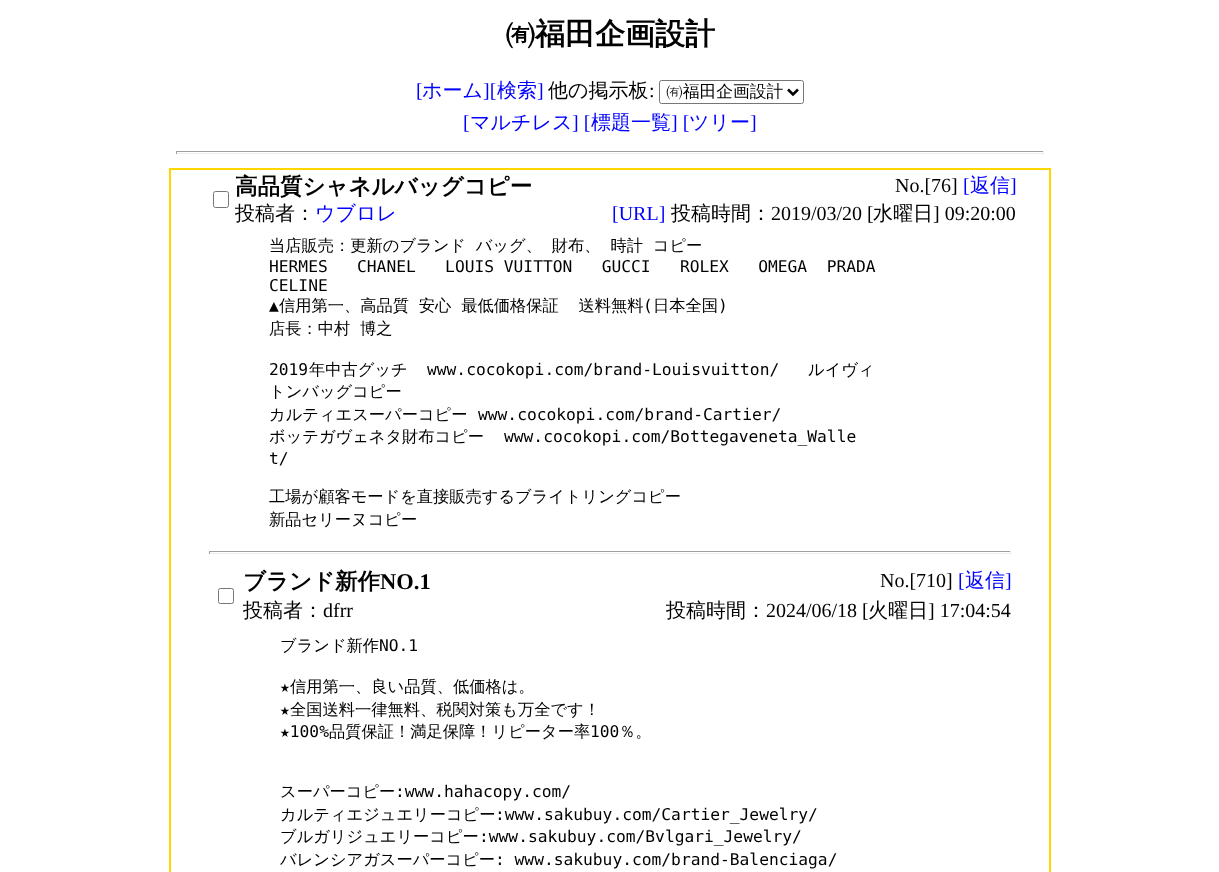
async function draw(canvas) {
  canvas.width = 1219
  canvas.height = 872
  const ctx = canvas.getContext('2d')
  ctx.miterLimit = 4
  ctx.fontKerning = 'normal'

  ctx.fillStyle = '#fff'
  ctx.fillRect(0, 0, 1219, 872)
  ctx.font = 'bold 30px WenQuanYi Zen Hei'
  ctx.fillStyle = '#000'
  ctx.fillText('㈲福田企画設計', 505, 44)
  ctx.font = '20px Liberation Serif'
  ctx.fillStyle = '#00f'
  ctx.fillText('[', 416, 97)
  ctx.font = '500 20px WenQuanYi Zen Hei'
  ctx.fillText('ホーム', 422, 97)
  ctx.font = '20px Liberation Serif'
  ctx.fillText('][', 483, 97)
  ctx.font = '500 20px WenQuanYi Zen Hei'
  ctx.fillText('検索', 497, 97)
  ctx.font = '20px Liberation Serif'
  ctx.fillText(']', 537, 97)
  ctx.font = '500 20px WenQuanYi Zen Hei'
  ctx.fillStyle = '#000'
  ctx.fillText('他の掲示板', 548, 97)
  ctx.font = '20px Liberation Serif'
  ctx.fillText(':', 649, 97)
  ctx.beginPath()
  ctx.roundRect(659.5, 80.5, 144, 23, 2)
  ctx.strokeStyle = '#767676'
  ctx.stroke()
  ctx.beginPath()
  ctx.moveTo(788, 89.5)
  ctx.lineTo(793, 94.5)
  ctx.lineTo(798, 89.5)
  ctx.strokeStyle = '#000'
  ctx.lineWidth = 2.5
  ctx.stroke()
  ctx.font = '500 16.75px WenQuanYi Zen Hei'
  ctx.fillText('㈲福田企画設計', 666, 97)
  ctx.font = '20px Liberation Serif'
  ctx.fillStyle = '#00f'
  ctx.fillText('[', 463, 129)
  ctx.font = '500 20px WenQuanYi Zen Hei'
  ctx.fillText('マルチレス', 470, 129)
  ctx.font = '20px Liberation Serif'
  ctx.fillText('] [', 572, 129)
  ctx.font = '500 20px WenQuanYi Zen Hei'
  ctx.fillText('標題一覧', 591, 129)
  ctx.font = '20px Liberation Serif'
  ctx.fillText('] [', 671, 129)
  ctx.font = '500 20px WenQuanYi Zen Hei'
  ctx.fillText('ツリー', 689, 129)
  ctx.font = '20px Liberation Serif'
  ctx.fillText(']', 750, 129)
  ctx.fillStyle = '#9f9f9f'
  ctx.fillRect(176, 151, 868, 1)
  ctx.fillStyle = '#eee'
  ctx.fillRect(1043, 151, 1, 3)
  ctx.fillRect(176, 153, 868, 1)
  ctx.fillStyle = '#9f9f9f'
  ctx.fillRect(176, 151, 1, 3)
  ctx.strokeStyle = '#ffd700'
  ctx.lineWidth = 1
  ctx.strokeRect(169.5, 168.5, 881, 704)
  ctx.strokeRect(170.5, 169.5, 879, 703)
  ctx.font = 'bold 22.5px WenQuanYi Zen Hei'
  ctx.fillStyle = '#000'
  ctx.fillText('高品質シャネルバッグコピー', 235, 194)
  ctx.font = '20px Liberation Serif'
  ctx.fillText('No.[76]', 895, 192)
  ctx.fillStyle = '#00f'
  ctx.fillText('[', 963, 192)
  ctx.font = '500 20px WenQuanYi Zen Hei'
  ctx.fillText('返信', 970, 192)
  ctx.font = '20px Liberation Serif'
  ctx.fillText(']', 1010, 192)
  ctx.beginPath()
  ctx.roundRect(213.5, 191.5, 15, 16, 2)
  ctx.strokeStyle = '#767676'
  ctx.stroke()
  ctx.font = '500 20px WenQuanYi Zen Hei'
  ctx.fillStyle = '#000'
  ctx.fillText('投稿者：', 235, 220)
  ctx.fillStyle = '#00f'
  ctx.fillText('ウブロレ', 315, 220)
  ctx.font = '20px Liberation Serif'
  ctx.fillText('[URL]', 612, 220)
  ctx.font = '500 20px WenQuanYi Zen Hei'
  ctx.fillStyle = '#000'
  ctx.fillText('投稿時間：', 671, 220)
  ctx.font = '20px Liberation Serif'
  ctx.fillText('2019/03/20 [', 771, 220)
  ctx.font = '500 20px WenQuanYi Zen Hei'
  ctx.fillText('水曜日', 873, 220)
  ctx.font = '20px Liberation Serif'
  ctx.fillText('] 09:20:00', 933, 220)
  ctx.wordSpacing = '5px'
  ctx.font = '500 16.25px WenQuanYi Zen Hei'
  ctx.fillText('当店販売：更新のブランド バッグ、 財布、 時計 コピー', 269, 251)
  ctx.wordSpacing = '0px'
  ctx.font = '16.25px DejaVu Sans Mono'
  ctx.fillText('HERMES   CHANEL   LOUIS VUITTON   GUCCI   ROLEX   OMEGA  PRADA', 269, 272)
  ctx.fillText('CELINE', 269, 291)
  ctx.fillText('▲', 269, 311)
  ctx.wordSpacing = '5px'
  ctx.font = '500 16.25px WenQuanYi Zen Hei'
  ctx.fillText('信用第一、高品質 安心 最低価格保証  送料無料', 279, 311)
  ctx.wordSpacing = '0px'
  ctx.font = '16.25px DejaVu Sans Mono'
  ctx.fillText('(', 643, 311)
  ctx.font = '500 16.25px WenQuanYi Zen Hei'
  ctx.fillText('日本全国', 653, 311)
  ctx.font = '16.25px DejaVu Sans Mono'
  ctx.fillText(')', 718, 311)
  ctx.wordSpacing = '5px'
  ctx.font = '500 16.25px WenQuanYi Zen Hei'
  ctx.fillText('店長：中村 博之', 269, 334)
  ctx.wordSpacing = '0px'
  ctx.font = '16.25px DejaVu Sans Mono'
  ctx.fillText('2019', 269, 375)
  ctx.font = '500 16.25px WenQuanYi Zen Hei'
  ctx.fillText('年中古グッチ', 309, 375)
  ctx.font = '16.25px DejaVu Sans Mono'
  ctx.fillText('www.cocokopi.com/brand-Louisvuitton/', 427, 375)
  ctx.font = '500 16.25px WenQuanYi Zen Hei'
  ctx.fillText('ルイヴィ', 808, 375)
  ctx.fillText('トンバッグコピー', 269, 397)
  ctx.fillText('カルティエスーパーコピー', 269, 420)
  ctx.font = '16.25px DejaVu Sans Mono'
  ctx.fillText('www.cocokopi.com/brand-Cartier/', 478, 420)
  ctx.font = '500 16.25px WenQuanYi Zen Hei'
  ctx.fillText('ボッテガヴェネタ財布コピー', 269, 442)
  ctx.font = '16.25px DejaVu Sans Mono'
  ctx.fillText('www.cocokopi.com/Bottegaveneta_Walle', 504, 442)
  ctx.fillText('t/', 269, 464)
  ctx.font = '500 16.25px WenQuanYi Zen Hei'
  ctx.fillText('工場が顧客モードを直接販売するブライトリングコピー', 269, 502)
  ctx.fillText('新品セリーヌコピー', 269, 525)
  ctx.fillStyle = '#9f9f9f'
  ctx.fillRect(209, 551, 802, 1)
  ctx.fillStyle = '#eee'
  ctx.fillRect(1010, 551, 1, 3)
  ctx.fillRect(209, 553, 802, 1)
  ctx.fillStyle = '#9f9f9f'
  ctx.fillRect(209, 551, 1, 3)
  ctx.font = 'bold 22.5px WenQuanYi Zen Hei'
  ctx.fillStyle = '#000'
  ctx.fillText('ブランド新作', 243, 589)
  ctx.font = 'bold 22.5px Liberation Serif'
  ctx.fillText('NO.1', 380, 589)
  ctx.font = '20px Liberation Serif'
  ctx.fillText('No.[710]', 880, 587)
  ctx.fillStyle = '#00f'
  ctx.fillText('[', 958, 587)
  ctx.font = '500 20px WenQuanYi Zen Hei'
  ctx.fillText('返信', 965, 587)
  ctx.font = '20px Liberation Serif'
  ctx.fillText(']', 1005, 587)
  ctx.beginPath()
  ctx.roundRect(218.5, 588.5, 15, 15, 2)
  ctx.stroke()
  ctx.font = '500 20px WenQuanYi Zen Hei'
  ctx.fillStyle = '#000'
  ctx.fillText('投稿者：', 243, 617)
  ctx.font = '20px Liberation Serif'
  ctx.fillText('dfrr', 323, 617)
  ctx.font = '500 20px WenQuanYi Zen Hei'
  ctx.fillText('投稿時間：', 666, 617)
  ctx.font = '20px Liberation Serif'
  ctx.fillText('2024/06/18 [', 766, 617)
  ctx.font = '500 20px WenQuanYi Zen Hei'
  ctx.fillText('火曜日', 868, 617)
  ctx.font = '20px Liberation Serif'
  ctx.fillText('] 17:04:54', 928, 617)
  ctx.font = '500 16.25px WenQuanYi Zen Hei'
  ctx.fillText('ブランド新作', 280, 651)
  ctx.font = '16.25px DejaVu Sans Mono'
  ctx.fillText('NO.1', 379, 651)
  ctx.fillText('★', 280, 692)
  ctx.font = '500 16.25px WenQuanYi Zen Hei'
  ctx.fillText('信用第一、良い品質、低価格は。', 290, 692)
  ctx.font = '16.25px DejaVu Sans Mono'
  ctx.fillText('★', 280, 715)
  ctx.font = '500 16.25px WenQuanYi Zen Hei'
  ctx.fillText('全国送料一律無料、税関対策も万全です！', 290, 715)
  ctx.font = '16.25px DejaVu Sans Mono'
  ctx.fillText('★100%', 280, 737)
  ctx.font = '500 16.25px WenQuanYi Zen Hei'
  ctx.fillText('品質保証！満足保障！リピーター率', 329, 737)
  ctx.font = '16.25px DejaVu Sans Mono'
  ctx.fillText('100', 590, 737)
  ctx.font = '500 16.25px WenQuanYi Zen Hei'
  ctx.fillText('％。', 619, 737)
  ctx.fillText('スーパーコピー', 280, 797)
  ctx.font = '16.25px DejaVu Sans Mono'
  ctx.fillText(':www.hahacopy.com/', 395, 797)
  ctx.font = '500 16.25px WenQuanYi Zen Hei'
  ctx.fillText('カルティエジュエリーコピー', 280, 820)
  ctx.font = '16.25px DejaVu Sans Mono'
  ctx.fillText(':www.sakubuy.com/Cartier_Jewelry/', 495, 820)
  ctx.font = '500 16.25px WenQuanYi Zen Hei'
  ctx.fillText('ブルガリジュエリーコピー', 280, 842)
  ctx.font = '16.25px DejaVu Sans Mono'
  ctx.fillText(':www.sakubuy.com/Bvlgari_Jewelry/', 479, 842)
  ctx.font = '500 16.25px WenQuanYi Zen Hei'
  ctx.fillText('バレンシアガスーパーコピー', 280, 865)
  ctx.font = '16.25px DejaVu Sans Mono'
  ctx.fillText(': www.sakubuy.com/brand-Balenciaga/', 495, 865)
}

draw(document.querySelector('canvas'))
